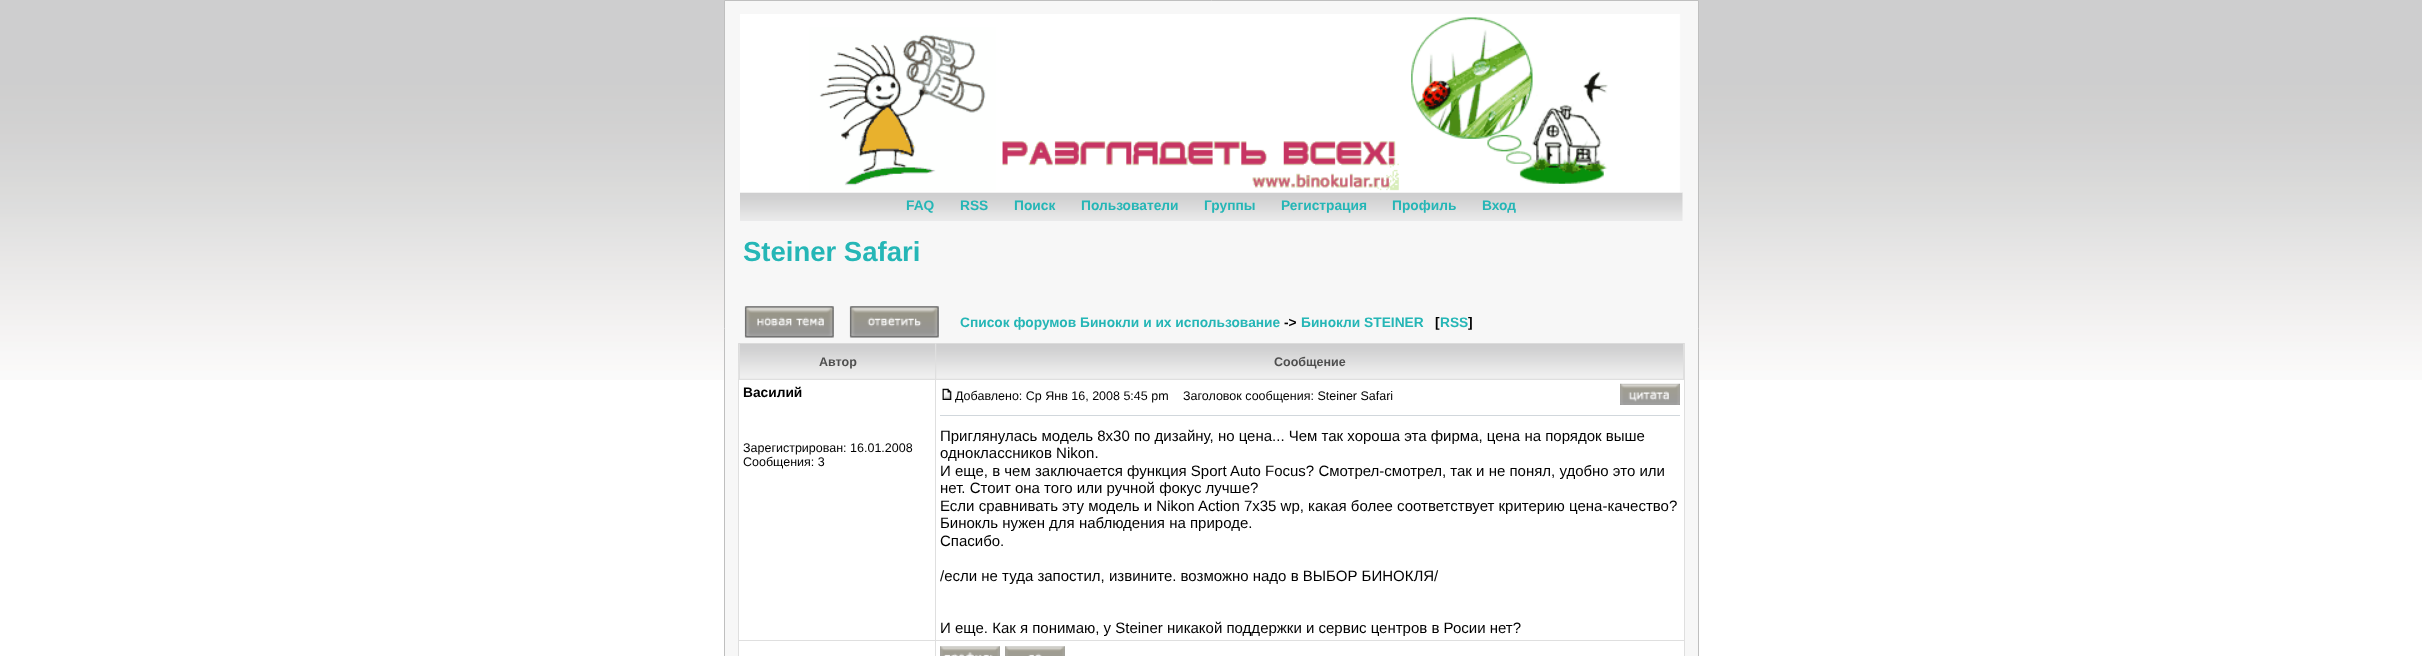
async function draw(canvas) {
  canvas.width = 2422
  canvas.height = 656
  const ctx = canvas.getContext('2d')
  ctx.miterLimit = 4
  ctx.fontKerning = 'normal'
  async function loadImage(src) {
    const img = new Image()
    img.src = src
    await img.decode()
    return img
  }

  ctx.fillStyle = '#fff'
  ctx.fillRect(0, 0, 2422, 656)
  ctx.drawImage(await loadImage('image0.png'), 0, 0, 2422, 380)
  ctx.fillStyle = '#f7f7f7'
  ctx.beginPath()
  ctx.rect(724.5, 0.5, 974, 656)
  ctx.fill()
  ctx.strokeStyle = '#bfbfbf'
  ctx.stroke()
  ctx.drawImage(await loadImage('image2.png'), 740, 192, 943, 29)
  ctx.drawImage(await loadImage('image1.png'), 740, 14, 942, 179)
  ctx.font = 'bold 13.75px Liberation Sans'
  ctx.fillStyle = '#25b6b6'
  ctx.fillText('FAQ', 906, 210)
  ctx.fillText('RSS', 960, 210)
  ctx.fillText('Поиск', 1014, 210)
  ctx.fillText('Пользователи', 1081, 210)
  ctx.fillText('Группы', 1204, 210)
  ctx.fillText('Регистрация', 1281, 210)
  ctx.fillText('Профиль', 1392, 210)
  ctx.fillText('Вход', 1482, 210)
  ctx.font = 'bold 27.5px Liberation Sans'
  ctx.fillText('Steiner Safari', 743, 261)
  ctx.drawImage(await loadImage('image3.png'), 744, 306, 90, 32)
  ctx.drawImage(await loadImage('image4.png'), 849, 306, 90, 32)
  ctx.font = 'bold 13.75px Liberation Sans'
  ctx.fillText('Список форумов Бинокли и их использование', 960, 327)
  ctx.fillStyle = '#000'
  ctx.fillText('->', 1284, 327)
  ctx.fillStyle = '#25b6b6'
  ctx.fillText('Бинокли STEINER', 1301, 327)
  ctx.fillStyle = '#000'
  ctx.fillText('[', 1435, 327)
  ctx.fillStyle = '#25b6b6'
  ctx.fillText('RSS', 1440, 327)
  ctx.fillStyle = '#000'
  ctx.fillText(']', 1468, 327)
  ctx.fillStyle = '#dfdfdf'
  ctx.fillRect(738, 343, 947, 313)
  ctx.drawImage(await loadImage('image5.png'), 738, 343, 197, 36)
  ctx.fillRect(739, 344, 1, 35)
  ctx.font = 'bold 12.5px Liberation Sans'
  ctx.fillStyle = '#4f4f4f'
  ctx.fillText('Автор', 819, 366)
  ctx.drawImage(await loadImage('image6.png'), 936, 343, 748, 36)
  ctx.fillStyle = '#dfdfdf'
  ctx.fillRect(1683, 344, 1, 35)
  ctx.fillStyle = '#4f4f4f'
  ctx.fillText('Сообщение', 1274, 366)
  ctx.fillStyle = '#fff'
  ctx.fillRect(739, 380, 196, 260)
  ctx.font = 'bold 13.75px Liberation Sans'
  ctx.fillStyle = '#000'
  ctx.fillText('Василий', 743, 397)
  ctx.font = '12.5px Liberation Sans'
  ctx.fillText('Зарегистрирован: 16.01.2008', 743, 452)
  ctx.fillText('Сообщения: 3', 743, 466)
  ctx.fillStyle = '#fff'
  ctx.fillRect(936, 380, 748, 260)
  ctx.drawImage(await loadImage('image7.png'), 942, 388, 10, 12)
  ctx.fillStyle = '#000'
  ctx.fillText('Добавлено: Ср Янв 16, 2008 5:45 pm', 955, 400)
  ctx.fillText('Заголовок сообщения: Steiner Safari', 1183, 400)
  ctx.drawImage(await loadImage('image8.png'), 1620, 383, 60, 22)
  ctx.fillStyle = '#d1d7dc'
  ctx.fillRect(940, 415, 740, 1)
  ctx.font = '15px Liberation Sans'
  ctx.fillStyle = '#000'
  ctx.fillText('Приглянулась модель 8х30 по дизайну, но цена... Чем так хороша эта фирма, цена на порядок выше', 940, 441)
  ctx.fillText('одноклассников Nikon.', 940, 458)
  ctx.fillText('И еще, в чем заключается функция Sport Auto Focus? Смотрел-смотрел, так и не понял, удобно это или', 940, 476)
  ctx.fillText('нет. Стоит она того или ручной фокус лучше?', 940, 493)
  ctx.fillText('Если сравнивать эту модель и Nikon Action 7x35 wp, какая более соответствует критерию цена-качество?', 940, 511)
  ctx.fillText('Бинокль нужен для наблюдения на природе.', 940, 528)
  ctx.fillText('Спасибо.', 940, 546)
  ctx.fillText('/если не туда запостил, извините. возможно надо в ВЫБОР БИНОКЛЯ/', 940, 581)
  ctx.fillText('И еще. Как я понимаю, у Steiner никакой поддержки и сервис центров в Росии нет?', 940, 633)
  ctx.fillStyle = '#fff'
  ctx.fillRect(739, 641, 196, 15)
  ctx.fillRect(936, 641, 748, 15)
  ctx.drawImage(await loadImage('image9.png'), 940, 646, 60, 10)
  ctx.drawImage(await loadImage('image10.png'), 1005, 646, 60, 10)
}

draw(document.querySelector('canvas'))
